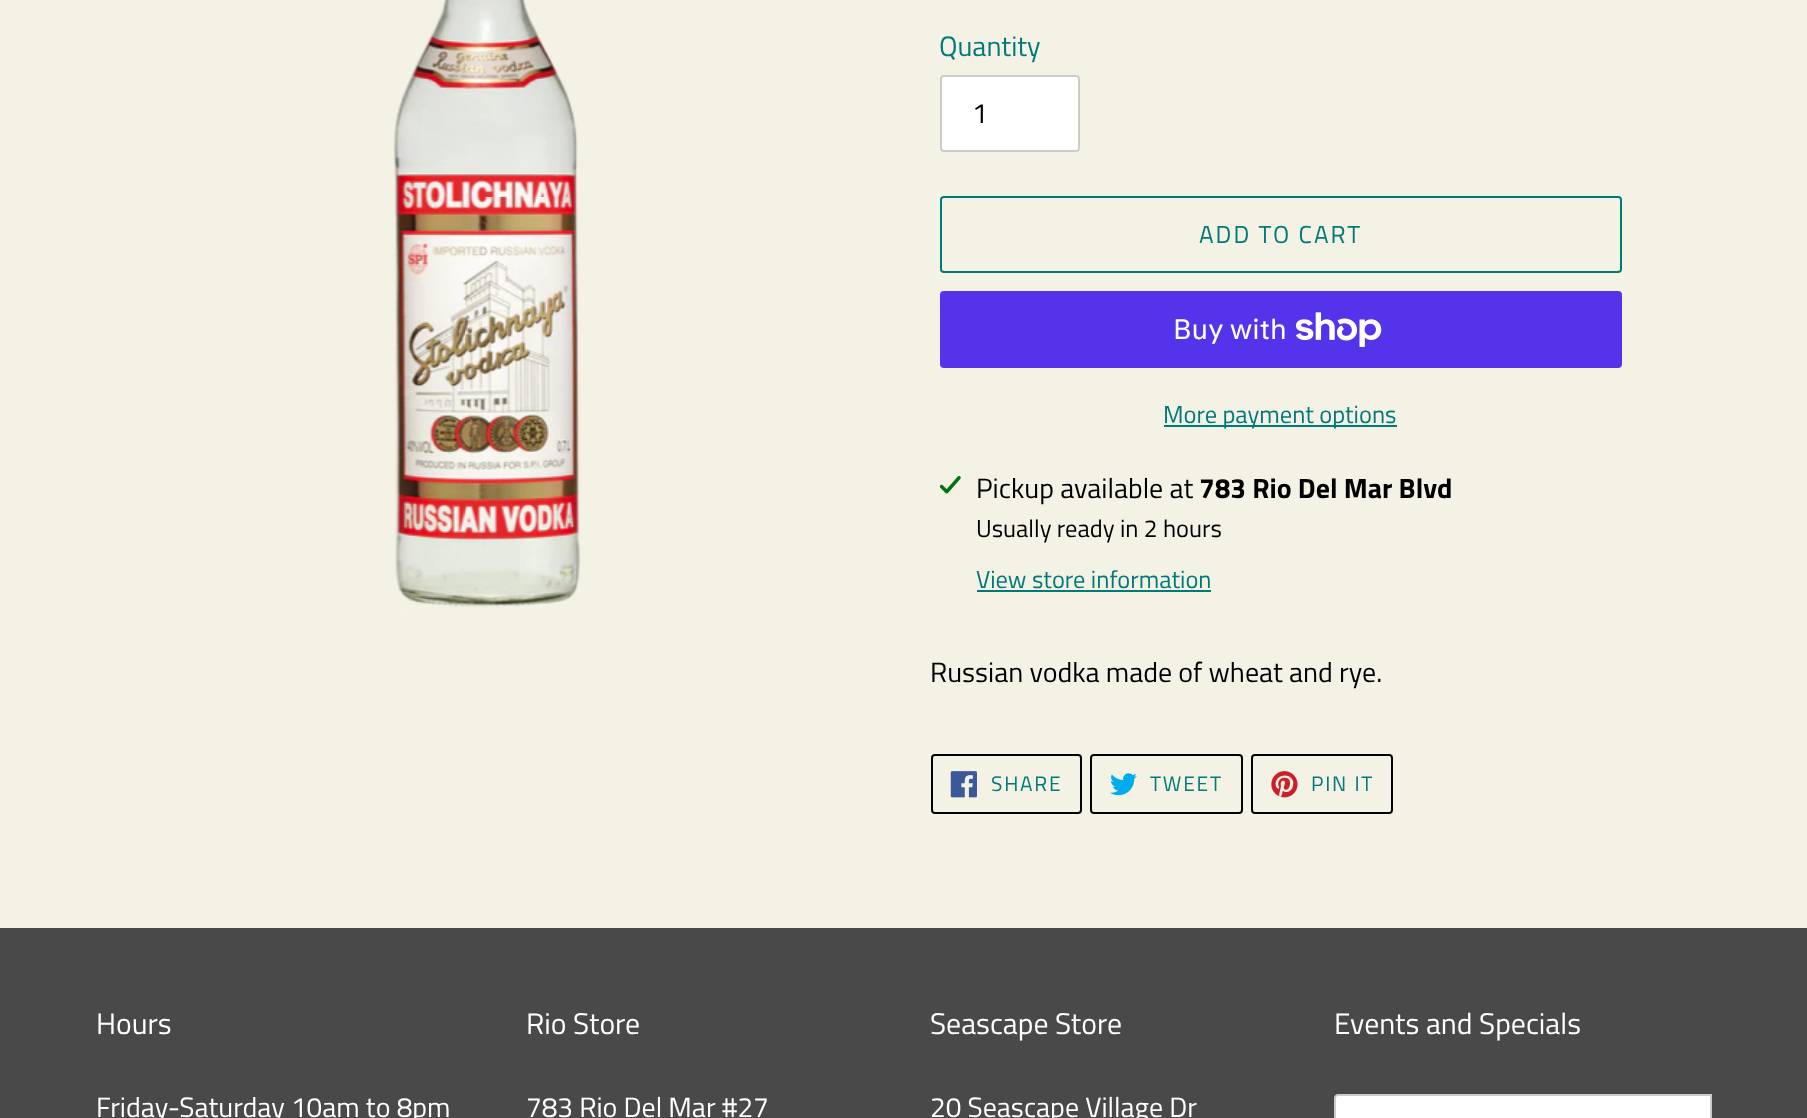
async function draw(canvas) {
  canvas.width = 1807
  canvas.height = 1118
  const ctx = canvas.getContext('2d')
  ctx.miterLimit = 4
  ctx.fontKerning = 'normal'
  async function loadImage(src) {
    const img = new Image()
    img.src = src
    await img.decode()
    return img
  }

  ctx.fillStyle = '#f4f2e5'
  ctx.fillRect(0, 0, 1807, 1118)
  ctx.drawImage(await loadImage('image0.png'), 393, 0, 188, 609)
  ctx.font = '28px Titillium Web'
  ctx.fillStyle = '#007979'
  ctx.fillText('Quantity', 939, 56)
  ctx.fillStyle = '#fff'
  ctx.beginPath()
  ctx.roundRect(941, 76, 138, 75, 3)
  ctx.fill()
  ctx.strokeStyle = '#ccc'
  ctx.lineWidth = 2
  ctx.stroke()
  ctx.fillStyle = '#000'
  ctx.fillText('1', 972, 123)
  ctx.beginPath()
  ctx.roundRect(941, 197, 680, 75, 3)
  ctx.strokeStyle = '#007979'
  ctx.stroke()
  ctx.letterSpacing = '2px'
  ctx.font = '24.5px Titillium Web'
  ctx.fillStyle = '#007979'
  ctx.fillText('ADD TO CART', 1199, 243)
  ctx.fillStyle = '#5433eb'
  ctx.beginPath()
  ctx.roundRect(940, 291, 682, 77, 4)
  ctx.fill()
  ctx.letterSpacing = '0px'
  ctx.font = '28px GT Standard'
  ctx.fillStyle = '#fff'
  ctx.fillText('Buy with', 1173, 339)
  ctx.drawImage(await loadImage('image1.png'), 1296, 312, 86, 35)
  ctx.fillStyle = '#007979'
  ctx.fillRect(1164, 425, 233, 2)
  ctx.font = '24.5px Titillium Web'
  ctx.fillText('More payment options', 1163, 423)
  ctx.drawImage(await loadImage('image2.png'), 940, 476, 21, 18)
  ctx.font = '28px Titillium Web'
  ctx.fillStyle = '#000'
  ctx.fillText('Pickup available at', 976, 498)
  ctx.font = 'bold 28px Titillium Web'
  ctx.fillText('783 Rio Del Mar Blvd', 1199, 498)
  ctx.font = '24.5px Titillium Web'
  ctx.fillText('Usually ready in 2 hours', 976, 537)
  ctx.fillStyle = '#007979'
  ctx.fillText('View store information', 976, 588)
  ctx.fillRect(977, 590, 234, 2)
  ctx.font = '28px Titillium Web'
  ctx.fillStyle = '#000'
  ctx.fillText('Russian vodka made of wheat and rye.', 930, 682)
  ctx.beginPath()
  ctx.roundRect(932, 755, 149, 58, 3)
  ctx.strokeStyle = '#030303'
  ctx.stroke()
  ctx.drawImage(await loadImage('image3.png'), 950, 771, 27, 27)
  ctx.letterSpacing = '1.75px'
  ctx.font = '21px Titillium Web'
  ctx.fillStyle = '#007979'
  ctx.fillText('SHARE', 991, 791)
  ctx.beginPath()
  ctx.roundRect(1091, 755, 151, 58, 3)
  ctx.stroke()
  ctx.drawImage(await loadImage('image4.png'), 1110, 773, 27, 23)
  ctx.fillText('TWEET', 1150, 791)
  ctx.beginPath()
  ctx.roundRect(1252, 755, 140, 58, 3)
  ctx.stroke()
  ctx.drawImage(await loadImage('image5.png'), 1271, 771, 27, 27)
  ctx.fillText('PIN IT', 1311, 791)
  ctx.fillStyle = '#494949'
  ctx.fillRect(0, 928, 1807, 190)
  ctx.letterSpacing = '0px'
  ctx.font = '29.75px Titillium Web'
  ctx.fillStyle = '#fff'
  ctx.fillText('Hours', 96, 1034)
  ctx.font = '28px Titillium Web'
  ctx.fillText('Friday-Saturday 10am to 8pm', 96, 1117)
  ctx.font = '29.75px Titillium Web'
  ctx.fillText('Rio Store', 526, 1034)
  ctx.font = '28px Titillium Web'
  ctx.fillText('783 Rio Del Mar #27', 526, 1117)
  ctx.font = '29.75px Titillium Web'
  ctx.fillText('Seascape Store', 930, 1034)
  ctx.font = '28px Titillium Web'
  ctx.fillText('20 Seascape Village Dr', 930, 1117)
  ctx.font = '29.75px Titillium Web'
  ctx.fillText('Events and Specials', 1334, 1034)
  ctx.beginPath()
  ctx.moveTo(1338, 1095)
  ctx.lineTo(1711, 1095)
  ctx.lineTo(1711, 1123)
  ctx.lineTo(1338, 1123)
  ctx.bezierCurveTo(1336.5, 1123, 1335, 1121.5, 1335, 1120)
  ctx.lineTo(1335, 1098)
  ctx.bezierCurveTo(1335, 1096.5, 1336.5, 1095, 1338, 1095)
  ctx.closePath()
  ctx.fill()
  ctx.strokeStyle = '#ccc'
  ctx.stroke()
}

draw(document.querySelector('canvas'))
